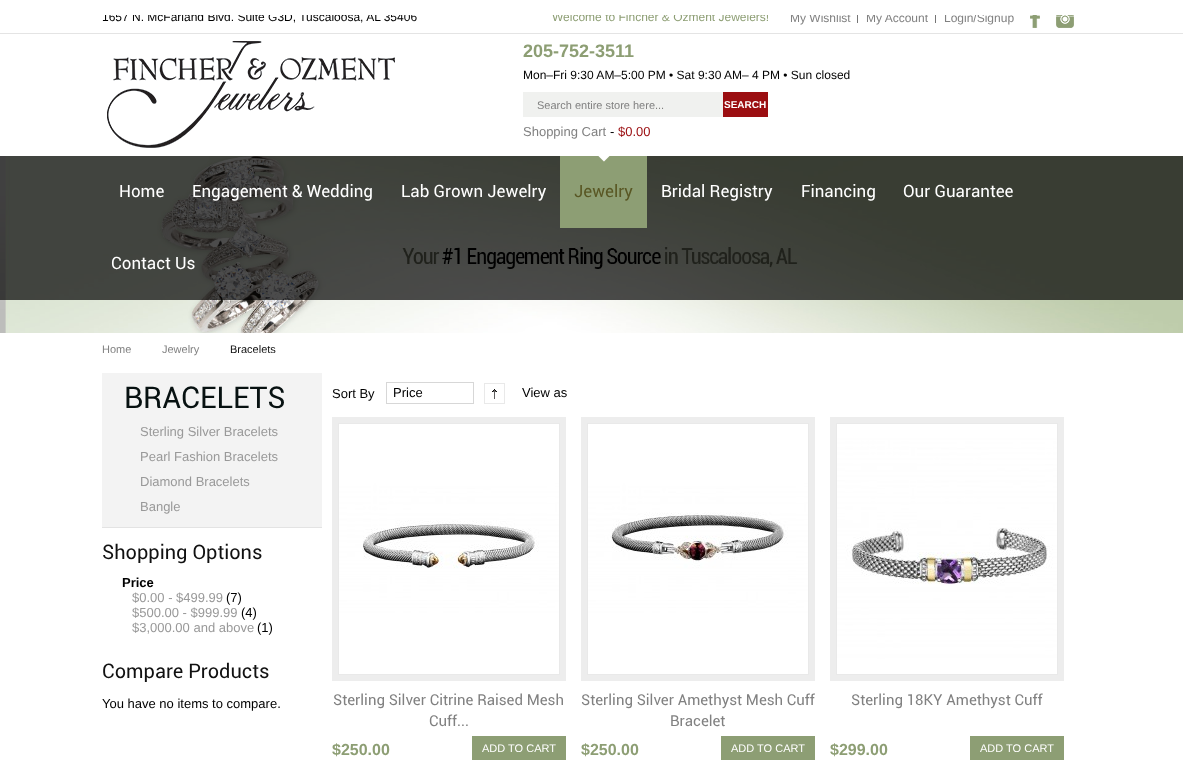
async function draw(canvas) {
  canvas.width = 1183
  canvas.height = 773
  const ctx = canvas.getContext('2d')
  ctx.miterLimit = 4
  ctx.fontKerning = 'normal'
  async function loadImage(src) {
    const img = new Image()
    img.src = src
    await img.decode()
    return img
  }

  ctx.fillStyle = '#fff'
  ctx.fillRect(0, 0, 1183, 773)
  ctx.fillStyle = '#e4e4e4'
  ctx.fillRect(0, 33, 1183, 1)
  ctx.font = '12px Liberation Sans'
  ctx.fillStyle = '#000'
  ctx.fillText('1657 N. McFarland Blvd. Suite G3D, Tuscaloosa, AL 35406', 102, 21)
  ctx.fillStyle = '#8d9e74'
  ctx.fillText('Welcome to Fincher & Ozment Jewelers!', 552, 21)
  ctx.fillStyle = '#757575'
  ctx.fillRect(857, 12, 1, 11)
  ctx.fillStyle = '#818181'
  ctx.fillText('My Wishlist', 790, 22)
  ctx.fillStyle = '#757575'
  ctx.fillRect(935, 12, 1, 11)
  ctx.fillStyle = '#818181'
  ctx.fillText('My Account', 866, 22)
  ctx.fillText('Login/Signup', 944, 22)
  ctx.drawImage(await loadImage('image0.png'), 1030, 15, 10, 13)
  ctx.drawImage(await loadImage('image1.png'), 1056, 15, 18, 13)
  ctx.drawImage(await loadImage('image2.png'), 107, 41, 288, 107)
  ctx.font = 'bold 18px Liberation Sans'
  ctx.fillStyle = '#8d9e74'
  ctx.fillText('205-752-3511', 523, 57)
  ctx.font = '12px Liberation Sans'
  ctx.fillStyle = '#000'
  ctx.fillText('Mon–Fri 9:30 AM–5:00 PM • Sat 9:30 AM– 4 PM • Sun closed', 523, 79)
  ctx.fillStyle = '#f0f1ef'
  ctx.fillRect(523, 92, 200, 25)
  ctx.font = '11px Liberation Sans'
  ctx.fillStyle = '#818181'
  ctx.fillText('Search entire store here...', 537, 109)
  ctx.fillStyle = '#9b0e11'
  ctx.fillRect(723, 92, 45, 25)
  ctx.font = 'bold 10px Liberation Sans'
  ctx.fillStyle = '#fff'
  ctx.fillText('SEARCH', 724, 108)
  ctx.font = '13px Liberation Sans'
  ctx.fillStyle = '#818181'
  ctx.fillText('Shopping Cart', 523, 136)
  ctx.fillStyle = '#000'
  ctx.fillText('-', 610, 136)
  ctx.fillStyle = '#9b0e11'
  ctx.fillText('$0.00', 618, 136)
  ctx.drawImage(await loadImage('image3.png'), 0, 156, 1183, 177)
  ctx.fillStyle = '#000000b3'
  ctx.fillRect(0, 156, 1183, 144)
  ctx.font = '17px Roboto'
  ctx.fillStyle = '#fff'
  ctx.fillText('Home', 119, 197)
  ctx.fillText('Engagement & Wedding', 192, 197)
  ctx.fillText('Lab Grown Jewelry', 401, 197)
  ctx.fillStyle = '#8d9e74'
  ctx.fillRect(560, 156, 87, 72)
  ctx.drawImage(await loadImage('image4.png'), 598, 156, 12, 6)
  ctx.fillStyle = '#595724'
  ctx.fillText('Jewelry', 574, 197)
  ctx.fillStyle = '#fff'
  ctx.fillText('Bridal Registry', 661, 197)
  ctx.fillText('Financing', 801, 197)
  ctx.fillText('Our Guarantee', 903, 197)
  ctx.fillText('Contact Us', 111, 269)
  ctx.font = '11px Liberation Sans'
  ctx.fillStyle = '#818181'
  ctx.fillText('Home', 102, 353)
  ctx.fillText('Jewelry', 162, 353)
  ctx.fillStyle = '#111'
  ctx.fillText('Bracelets', 230, 353)
  ctx.fillStyle = '#f3f3f3'
  ctx.fillRect(102, 373, 220, 154)
  ctx.fillStyle = '#e3e3e3'
  ctx.fillRect(102, 527, 220, 1)
  ctx.font = '30px Roboto'
  ctx.fillStyle = '#071111'
  ctx.fillText('BRACELETS', 124, 408)
  ctx.font = '13px Liberation Sans'
  ctx.fillStyle = '#999'
  ctx.fillText('Sterling Silver Bracelets', 140, 436)
  ctx.fillText('Pearl Fashion Bracelets', 140, 461)
  ctx.fillText('Diamond Bracelets', 140, 486)
  ctx.fillText('Bangle', 140, 511)
  ctx.font = '20px Roboto'
  ctx.fillStyle = '#111'
  ctx.fillText('Shopping Options', 102, 559)
  ctx.font = 'bold 13px Liberation Sans'
  ctx.fillStyle = '#000'
  ctx.fillText('Price', 122, 587)
  ctx.font = '13px Liberation Sans'
  ctx.fillStyle = '#999'
  ctx.fillText('$0.00 - $499.99', 132, 602)
  ctx.fillStyle = '#000'
  ctx.fillText('(7)', 226, 602)
  ctx.fillStyle = '#999'
  ctx.fillText('$500.00 - $999.99', 132, 617)
  ctx.fillStyle = '#000'
  ctx.fillText('(4)', 241, 617)
  ctx.fillStyle = '#999'
  ctx.fillText('$3,000.00 and above', 132, 632)
  ctx.fillStyle = '#000'
  ctx.fillText('(1)', 257, 632)
  ctx.font = '20px Roboto'
  ctx.fillStyle = '#111'
  ctx.fillText('Compare Products', 102, 678)
  ctx.font = '13px Liberation Sans'
  ctx.fillStyle = '#000'
  ctx.fillText('You have no items to compare.', 102, 708)
  ctx.fillText('Sort By', 332, 398)
  ctx.strokeStyle = '#d7d7d7'
  ctx.strokeRect(386.5, 382.5, 87, 21)
  ctx.fillText('Price', 393, 397)
  ctx.drawImage(await loadImage('image5.png'), 484, 383, 21, 21)
  ctx.fillText('View as', 522, 397)
  ctx.fillStyle = '#ededed'
  ctx.fillRect(332, 417, 234, 264)
  ctx.strokeStyle = '#e9e9e9'
  ctx.strokeRect(338.5, 423.5, 221, 251)
  ctx.drawImage(await loadImage('image6.png'), 339, 424, 220, 250)
  ctx.font = '15px Roboto'
  ctx.fillStyle = '#818181'
  ctx.fillText('Sterling Silver Citrine Raised Mesh', 333, 705)
  ctx.fillText('Cuff...', 429, 726)
  ctx.font = 'bold 16px Liberation Sans'
  ctx.fillStyle = '#8d9e74'
  ctx.fillText('$250.00', 332, 755)
  ctx.fillRect(472, 736, 94, 24)
  ctx.font = '11px Liberation Sans'
  ctx.fillStyle = '#fff'
  ctx.fillText('ADD TO CART', 482, 752)
  ctx.fillStyle = '#ededed'
  ctx.fillRect(581, 417, 234, 264)
  ctx.strokeRect(587.5, 423.5, 221, 251)
  ctx.drawImage(await loadImage('image7.png'), 588, 424, 220, 250)
  ctx.font = '15px Roboto'
  ctx.fillStyle = '#818181'
  ctx.fillText('Sterling Silver Amethyst Mesh Cuff', 581, 705)
  ctx.fillText('Bracelet', 670, 726)
  ctx.font = 'bold 16px Liberation Sans'
  ctx.fillStyle = '#8d9e74'
  ctx.fillText('$250.00', 581, 755)
  ctx.fillRect(721, 736, 94, 24)
  ctx.font = '11px Liberation Sans'
  ctx.fillStyle = '#fff'
  ctx.fillText('ADD TO CART', 731, 752)
  ctx.fillStyle = '#ededed'
  ctx.fillRect(830, 417, 234, 264)
  ctx.strokeRect(836.5, 423.5, 221, 251)
  ctx.drawImage(await loadImage('image8.png'), 837, 424, 220, 250)
  ctx.font = '15px Roboto'
  ctx.fillStyle = '#818181'
  ctx.fillText('Sterling 18KY Amethyst Cuff', 851, 705)
  ctx.font = 'bold 16px Liberation Sans'
  ctx.fillStyle = '#8d9e74'
  ctx.fillText('$299.00', 830, 755)
  ctx.fillRect(970, 736, 94, 24)
  ctx.font = '11px Liberation Sans'
  ctx.fillStyle = '#fff'
  ctx.fillText('ADD TO CART', 980, 752)
  ctx.fillRect(102, 12, 885, 3)
}

draw(document.querySelector('canvas'))
